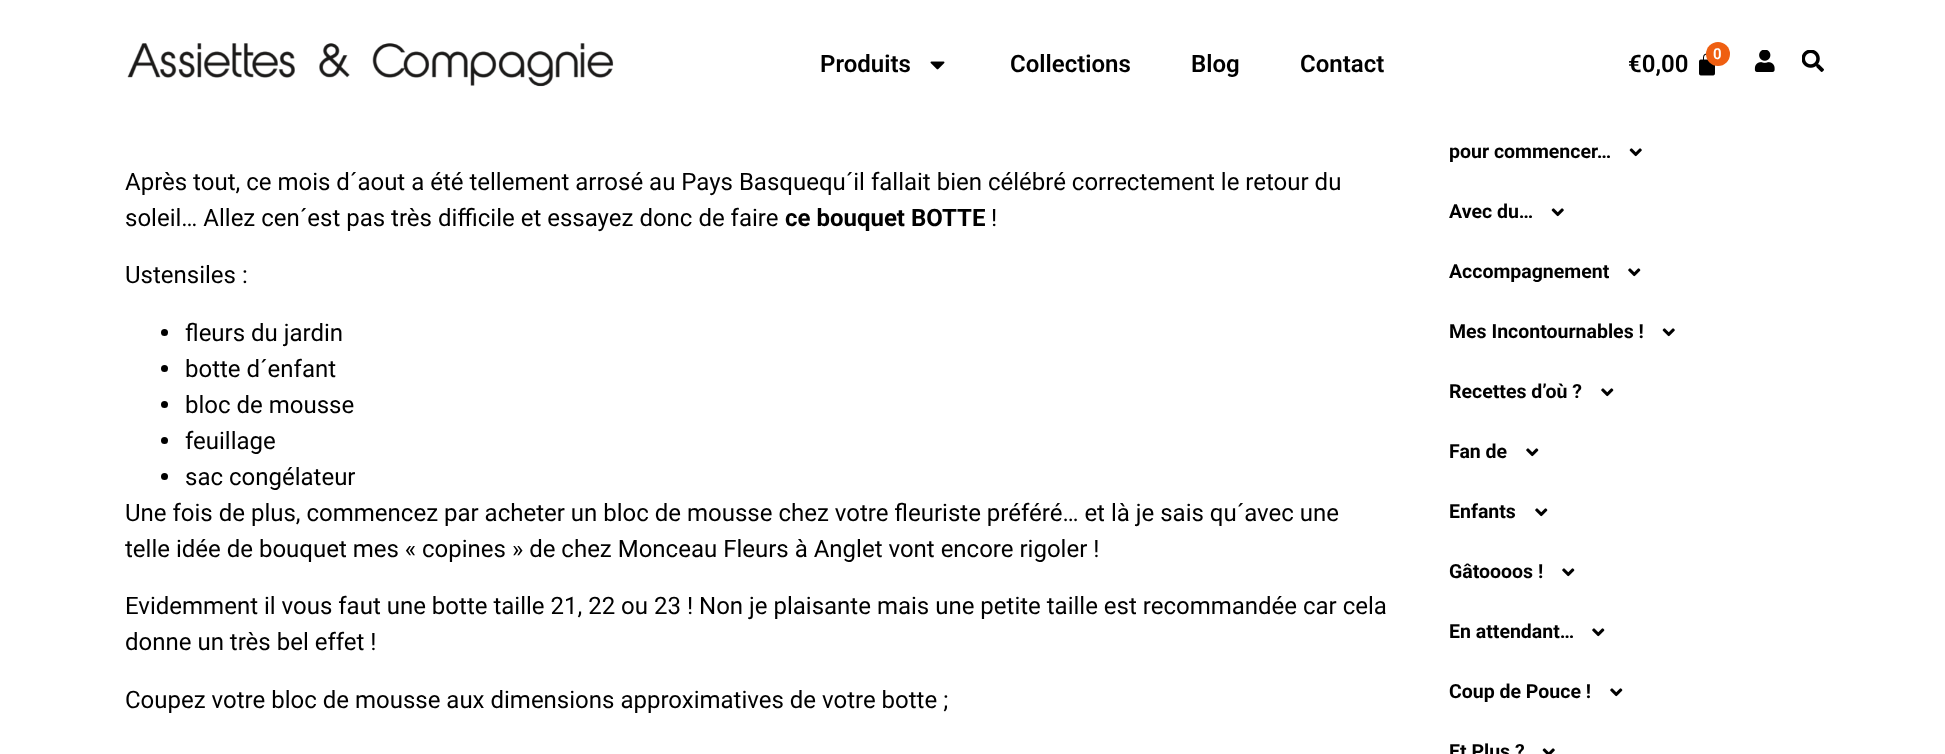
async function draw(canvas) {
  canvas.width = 1945
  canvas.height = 754
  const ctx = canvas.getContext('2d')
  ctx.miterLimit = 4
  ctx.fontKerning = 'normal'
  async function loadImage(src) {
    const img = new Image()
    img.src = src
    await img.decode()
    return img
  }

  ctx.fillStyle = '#fff'
  ctx.fillRect(0, 0, 1945, 754)
  ctx.drawImage(await loadImage('image0.png'), 127, 43, 487, 44)
  ctx.font = '600 24px Roboto'
  ctx.fillStyle = '#000'
  ctx.fillText('Produits', 820, 72)
  ctx.drawImage(await loadImage('image1.png'), 930, 61, 15, 9)
  ctx.fillText('Collections', 1010, 72)
  ctx.fillText('Blog', 1191, 72)
  ctx.fillText('Contact', 1300, 72)
  ctx.fillText('€0,00', 1628, 72)
  ctx.drawImage(await loadImage('image2.png'), 1699, 53, 16, 23)
  ctx.fillStyle = '#ef5f11'
  ctx.beginPath()
  ctx.arc(1718, 54, 12, 0, 2 * Math.PI)
  ctx.fill()
  ctx.font = '600 15px Roboto'
  ctx.fillStyle = '#fff'
  ctx.fillText('0', 1713, 59)
  ctx.drawImage(await loadImage('image3.png'), 1754, 50, 21, 22)
  ctx.drawImage(await loadImage('image4.png'), 1802, 50, 22, 22)
  ctx.font = '24px Roboto'
  ctx.fillStyle = '#000'
  ctx.fillText('Après tout, ce mois d´aout a été tellement arrosé au Pays Basquequ´il fallait bien célébré correctement le retour du', 125, 190)
  ctx.fillText('soleil… Allez cen´est pas très difficile et essayez donc de faire', 125, 226)
  ctx.font = 'bold 24px Roboto'
  ctx.fillText('ce bouquet BOTTE', 785, 226)
  ctx.font = '24px Roboto'
  ctx.fillText('!', 991, 226)
  ctx.fillText('Ustensiles :', 125, 283)
  ctx.beginPath()
  ctx.arc(164.5, 332.5, 3.5, 0, 2 * Math.PI)
  ctx.fill()
  ctx.fillText('fleurs du jardin', 185, 341)
  ctx.beginPath()
  ctx.arc(164.5, 368.5, 3.5, 0, 2 * Math.PI)
  ctx.fill()
  ctx.fillText('botte d´enfant', 185, 377)
  ctx.beginPath()
  ctx.arc(164.5, 404.5, 3.5, 0, 2 * Math.PI)
  ctx.fill()
  ctx.fillText('bloc de mousse', 185, 413)
  ctx.beginPath()
  ctx.arc(164.5, 440.5, 3.5, 0, 2 * Math.PI)
  ctx.fill()
  ctx.fillText('feuillage', 185, 449)
  ctx.beginPath()
  ctx.arc(164.5, 476.5, 3.5, 0, 2 * Math.PI)
  ctx.fill()
  ctx.fillText('sac congélateur', 185, 485)
  ctx.fillText('Une fois de plus, commencez par acheter un bloc de mousse chez votre fleuriste préféré… et là je sais qu´avec une', 125, 521)
  ctx.fillText('telle idée de bouquet mes « copines » de chez Monceau Fleurs à Anglet vont encore rigoler !', 125, 557)
  ctx.fillText('Evidemment il vous faut une botte taille 21, 22 ou 23 ! Non je plaisante mais une petite taille est recommandée car cela', 125, 614)
  ctx.fillText('donne un très bel effet !', 125, 650)
  ctx.fillText('Coupez votre bloc de mousse aux dimensions approximatives de votre botte ;', 125, 708)
  ctx.font = 'bold 19.5px Roboto'
  ctx.fillText('pour commencer…', 1449, 158)
  ctx.drawImage(await loadImage('image5.png'), 1629, 148, 13, 9)
  ctx.fillText('Avec du…', 1449, 218)
  ctx.drawImage(await loadImage('image5.png'), 1551, 208, 13, 9)
  ctx.fillText('Accompagnement', 1449, 278)
  ctx.drawImage(await loadImage('image6.png'), 1628, 268, 13, 9)
  ctx.fillText('Mes Incontournables !', 1449, 338)
  ctx.drawImage(await loadImage('image5.png'), 1662, 328, 13, 9)
  ctx.fillText('Recettes d’où ?', 1449, 398)
  ctx.drawImage(await loadImage('image6.png'), 1601, 388, 13, 9)
  ctx.fillText('Fan de', 1449, 458)
  ctx.drawImage(await loadImage('image6.png'), 1526, 448, 13, 9)
  ctx.fillText('Enfants', 1449, 518)
  ctx.drawImage(await loadImage('image6.png'), 1535, 508, 13, 9)
  ctx.fillText('Gâtoooos !', 1449, 578)
  ctx.drawImage(await loadImage('image6.png'), 1562, 568, 13, 9)
  ctx.fillText('En attendant…', 1449, 638)
  ctx.drawImage(await loadImage('image6.png'), 1592, 628, 13, 9)
  ctx.fillText('Coup de Pouce !', 1449, 698)
  ctx.drawImage(await loadImage('image6.png'), 1610, 688, 13, 9)
  ctx.fillText('Et Plus ?', 1449, 758)
  ctx.drawImage(await loadImage('image7.png'), 1542, 748, 13, 6)
}

draw(document.querySelector('canvas'))
